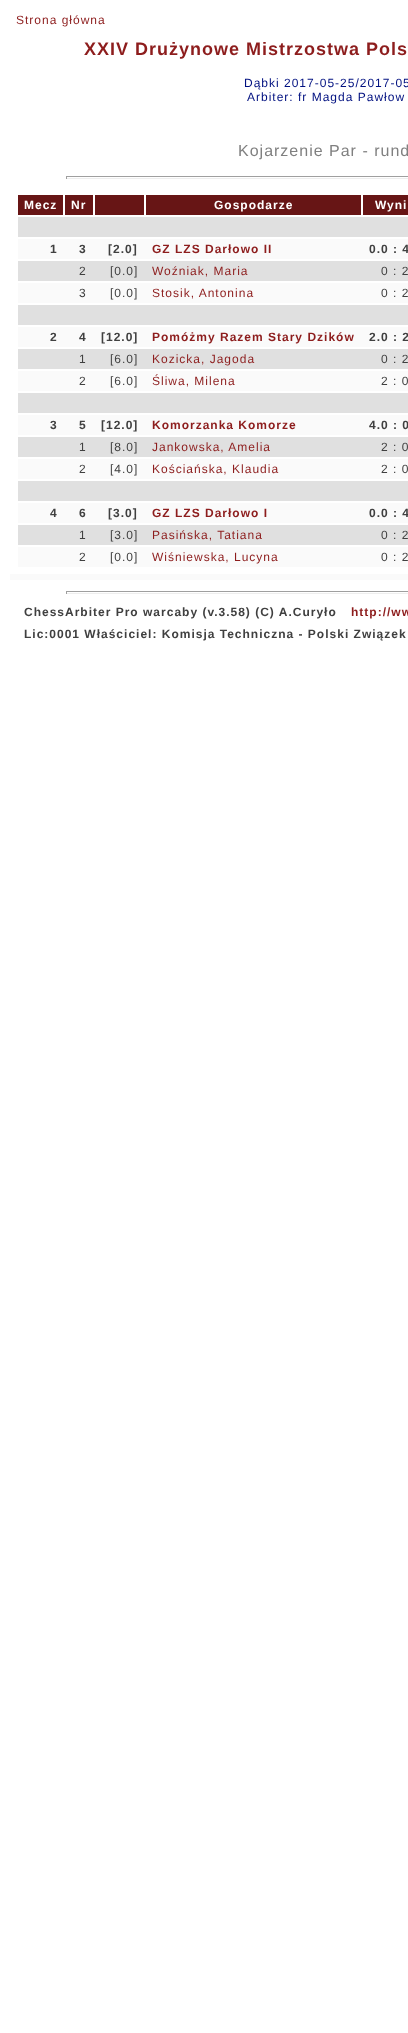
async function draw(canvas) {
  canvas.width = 408
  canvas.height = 2033
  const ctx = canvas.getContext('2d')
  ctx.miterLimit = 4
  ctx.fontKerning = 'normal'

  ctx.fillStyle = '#fff'
  ctx.fillRect(0, 0, 408, 2033)
  ctx.letterSpacing = '1px'
  ctx.font = '12px Liberation Sans'
  ctx.fillStyle = '#8d1d1d'
  ctx.fillText('Strona główna', 16, 24)
  ctx.font = 'bold 18px Liberation Sans'
  ctx.fillText('XXIV Drużynowe Mistrzostwa Pols', 84, 55)
  ctx.font = '12px Liberation Sans'
  ctx.fillStyle = '#001080'
  ctx.fillText('Dąbki 2017-05-25/2017-05', 244, 87)
  ctx.fillText('Arbiter: fr Magda Pawłow', 247, 101)
  ctx.font = '16px Liberation Sans'
  ctx.fillStyle = '#808080'
  ctx.fillText('Kojarzenie Par - rund', 238, 156)
  ctx.fillStyle = '#9f9f9f'
  ctx.fillRect(66, 176, 342, 1)
  ctx.fillStyle = '#eee'
  ctx.fillRect(66, 178, 342, 1)
  ctx.fillStyle = '#9f9f9f'
  ctx.fillRect(66, 176, 1, 3)
  ctx.fillStyle = '#671515'
  ctx.fillRect(18, 195, 45, 20)
  ctx.font = 'bold 12px Liberation Sans'
  ctx.fillStyle = '#fff'
  ctx.fillText('Mecz', 24, 209)
  ctx.fillStyle = '#671515'
  ctx.fillRect(65, 195, 28, 20)
  ctx.fillStyle = '#fff'
  ctx.fillText('Nr', 71, 209)
  ctx.fillStyle = '#671515'
  ctx.fillRect(95, 195, 49, 20)
  ctx.fillRect(146, 195, 215, 20)
  ctx.fillStyle = '#fff'
  ctx.fillText('Gospodarze', 214, 209)
  ctx.fillStyle = '#671515'
  ctx.fillRect(363, 195, 45, 20)
  ctx.fillStyle = '#fff'
  ctx.fillText('Wyni', 375, 209)
  ctx.fillStyle = '#e0e0e0'
  ctx.fillRect(18, 217, 390, 20)
  ctx.fillStyle = '#fafafa'
  ctx.fillRect(18, 239, 390, 20)
  ctx.fillStyle = '#404040'
  ctx.fillText('1', 50, 253)
  ctx.fillText('3', 79, 253)
  ctx.fillText('[2.0]', 108, 253)
  ctx.fillStyle = '#8d1d1d'
  ctx.fillText('GZ LZS Darłowo II', 152, 253)
  ctx.fillStyle = '#404040'
  ctx.fillText('0.0 : 4', 369, 253)
  ctx.fillStyle = '#e0e0e0'
  ctx.fillRect(18, 261, 390, 20)
  ctx.font = '12px Liberation Sans'
  ctx.fillStyle = '#404040'
  ctx.fillText('2', 79, 275)
  ctx.fillText('[0.0]', 110, 275)
  ctx.fillStyle = '#8d1d1d'
  ctx.fillText('Woźniak, Maria', 152, 275)
  ctx.fillStyle = '#404040'
  ctx.fillText('0 : 2', 381, 275)
  ctx.fillStyle = '#fafafa'
  ctx.fillRect(18, 283, 390, 20)
  ctx.fillStyle = '#404040'
  ctx.fillText('3', 79, 297)
  ctx.fillText('[0.0]', 110, 297)
  ctx.fillStyle = '#8d1d1d'
  ctx.fillText('Stosik, Antonina', 152, 297)
  ctx.fillStyle = '#404040'
  ctx.fillText('0 : 2', 381, 297)
  ctx.fillStyle = '#e0e0e0'
  ctx.fillRect(18, 305, 390, 20)
  ctx.fillStyle = '#fafafa'
  ctx.fillRect(18, 327, 390, 20)
  ctx.font = 'bold 12px Liberation Sans'
  ctx.fillStyle = '#404040'
  ctx.fillText('2', 50, 341)
  ctx.fillText('4', 79, 341)
  ctx.fillText('[12.0]', 101, 341)
  ctx.fillStyle = '#8d1d1d'
  ctx.fillText('Pomóżmy Razem Stary Dzików', 152, 341)
  ctx.fillStyle = '#404040'
  ctx.fillText('2.0 : 2', 369, 341)
  ctx.fillStyle = '#e0e0e0'
  ctx.fillRect(18, 349, 390, 20)
  ctx.font = '12px Liberation Sans'
  ctx.fillStyle = '#404040'
  ctx.fillText('1', 79, 363)
  ctx.fillText('[6.0]', 110, 363)
  ctx.fillStyle = '#8d1d1d'
  ctx.fillText('Kozicka, Jagoda', 152, 363)
  ctx.fillStyle = '#404040'
  ctx.fillText('0 : 2', 381, 363)
  ctx.fillStyle = '#fafafa'
  ctx.fillRect(18, 371, 390, 20)
  ctx.fillStyle = '#404040'
  ctx.fillText('2', 79, 385)
  ctx.fillText('[6.0]', 110, 385)
  ctx.fillStyle = '#8d1d1d'
  ctx.fillText('Śliwa, Milena', 152, 385)
  ctx.fillStyle = '#404040'
  ctx.fillText('2 : 0', 381, 385)
  ctx.fillStyle = '#e0e0e0'
  ctx.fillRect(18, 393, 390, 20)
  ctx.fillStyle = '#fafafa'
  ctx.fillRect(18, 415, 390, 20)
  ctx.font = 'bold 12px Liberation Sans'
  ctx.fillStyle = '#404040'
  ctx.fillText('3', 50, 429)
  ctx.fillText('5', 79, 429)
  ctx.fillText('[12.0]', 101, 429)
  ctx.fillStyle = '#8d1d1d'
  ctx.fillText('Komorzanka Komorze', 152, 429)
  ctx.fillStyle = '#404040'
  ctx.fillText('4.0 : 0', 369, 429)
  ctx.fillStyle = '#e0e0e0'
  ctx.fillRect(18, 437, 390, 20)
  ctx.font = '12px Liberation Sans'
  ctx.fillStyle = '#404040'
  ctx.fillText('1', 79, 451)
  ctx.fillText('[8.0]', 110, 451)
  ctx.fillStyle = '#8d1d1d'
  ctx.fillText('Jankowska, Amelia', 152, 451)
  ctx.fillStyle = '#404040'
  ctx.fillText('2 : 0', 381, 451)
  ctx.fillStyle = '#fafafa'
  ctx.fillRect(18, 459, 390, 20)
  ctx.fillStyle = '#404040'
  ctx.fillText('2', 79, 473)
  ctx.fillText('[4.0]', 110, 473)
  ctx.fillStyle = '#8d1d1d'
  ctx.fillText('Kościańska, Klaudia', 152, 473)
  ctx.fillStyle = '#404040'
  ctx.fillText('2 : 0', 381, 473)
  ctx.fillStyle = '#e0e0e0'
  ctx.fillRect(18, 481, 390, 20)
  ctx.fillStyle = '#fafafa'
  ctx.fillRect(18, 503, 390, 20)
  ctx.font = 'bold 12px Liberation Sans'
  ctx.fillStyle = '#404040'
  ctx.fillText('4', 50, 517)
  ctx.fillText('6', 79, 517)
  ctx.fillText('[3.0]', 108, 517)
  ctx.fillStyle = '#8d1d1d'
  ctx.fillText('GZ LZS Darłowo I', 152, 517)
  ctx.fillStyle = '#404040'
  ctx.fillText('0.0 : 4', 369, 517)
  ctx.fillStyle = '#e0e0e0'
  ctx.fillRect(18, 525, 390, 20)
  ctx.font = '12px Liberation Sans'
  ctx.fillStyle = '#404040'
  ctx.fillText('1', 79, 539)
  ctx.fillText('[3.0]', 110, 539)
  ctx.fillStyle = '#8d1d1d'
  ctx.fillText('Pasińska, Tatiana', 152, 539)
  ctx.fillStyle = '#404040'
  ctx.fillText('0 : 2', 381, 539)
  ctx.fillStyle = '#fafafa'
  ctx.fillRect(18, 547, 390, 20)
  ctx.fillStyle = '#404040'
  ctx.fillText('2', 79, 561)
  ctx.fillText('[0.0]', 110, 561)
  ctx.fillStyle = '#8d1d1d'
  ctx.fillText('Wiśniewska, Lucyna', 152, 561)
  ctx.fillStyle = '#404040'
  ctx.fillText('0 : 2', 381, 561)
  ctx.fillStyle = '#fafafa'
  ctx.fillRect(10, 574, 398, 6)
  ctx.fillStyle = '#9f9f9f'
  ctx.fillRect(66, 591, 342, 1)
  ctx.fillStyle = '#eee'
  ctx.fillRect(66, 593, 342, 1)
  ctx.fillStyle = '#9f9f9f'
  ctx.fillRect(66, 591, 1, 3)
  ctx.font = 'bold 12px Liberation Sans'
  ctx.fillStyle = '#404040'
  ctx.fillText('ChessArbiter Pro warcaby (v.3.58) (C) A.Curyło', 24, 616)
  ctx.fillStyle = '#8d1d1d'
  ctx.fillText('http://ww', 351, 616)
  ctx.fillStyle = '#404040'
  ctx.fillText('Lic:0001 Właściciel: Komisja Techniczna - Polski Związek', 24, 638)
}

draw(document.querySelector('canvas'))
